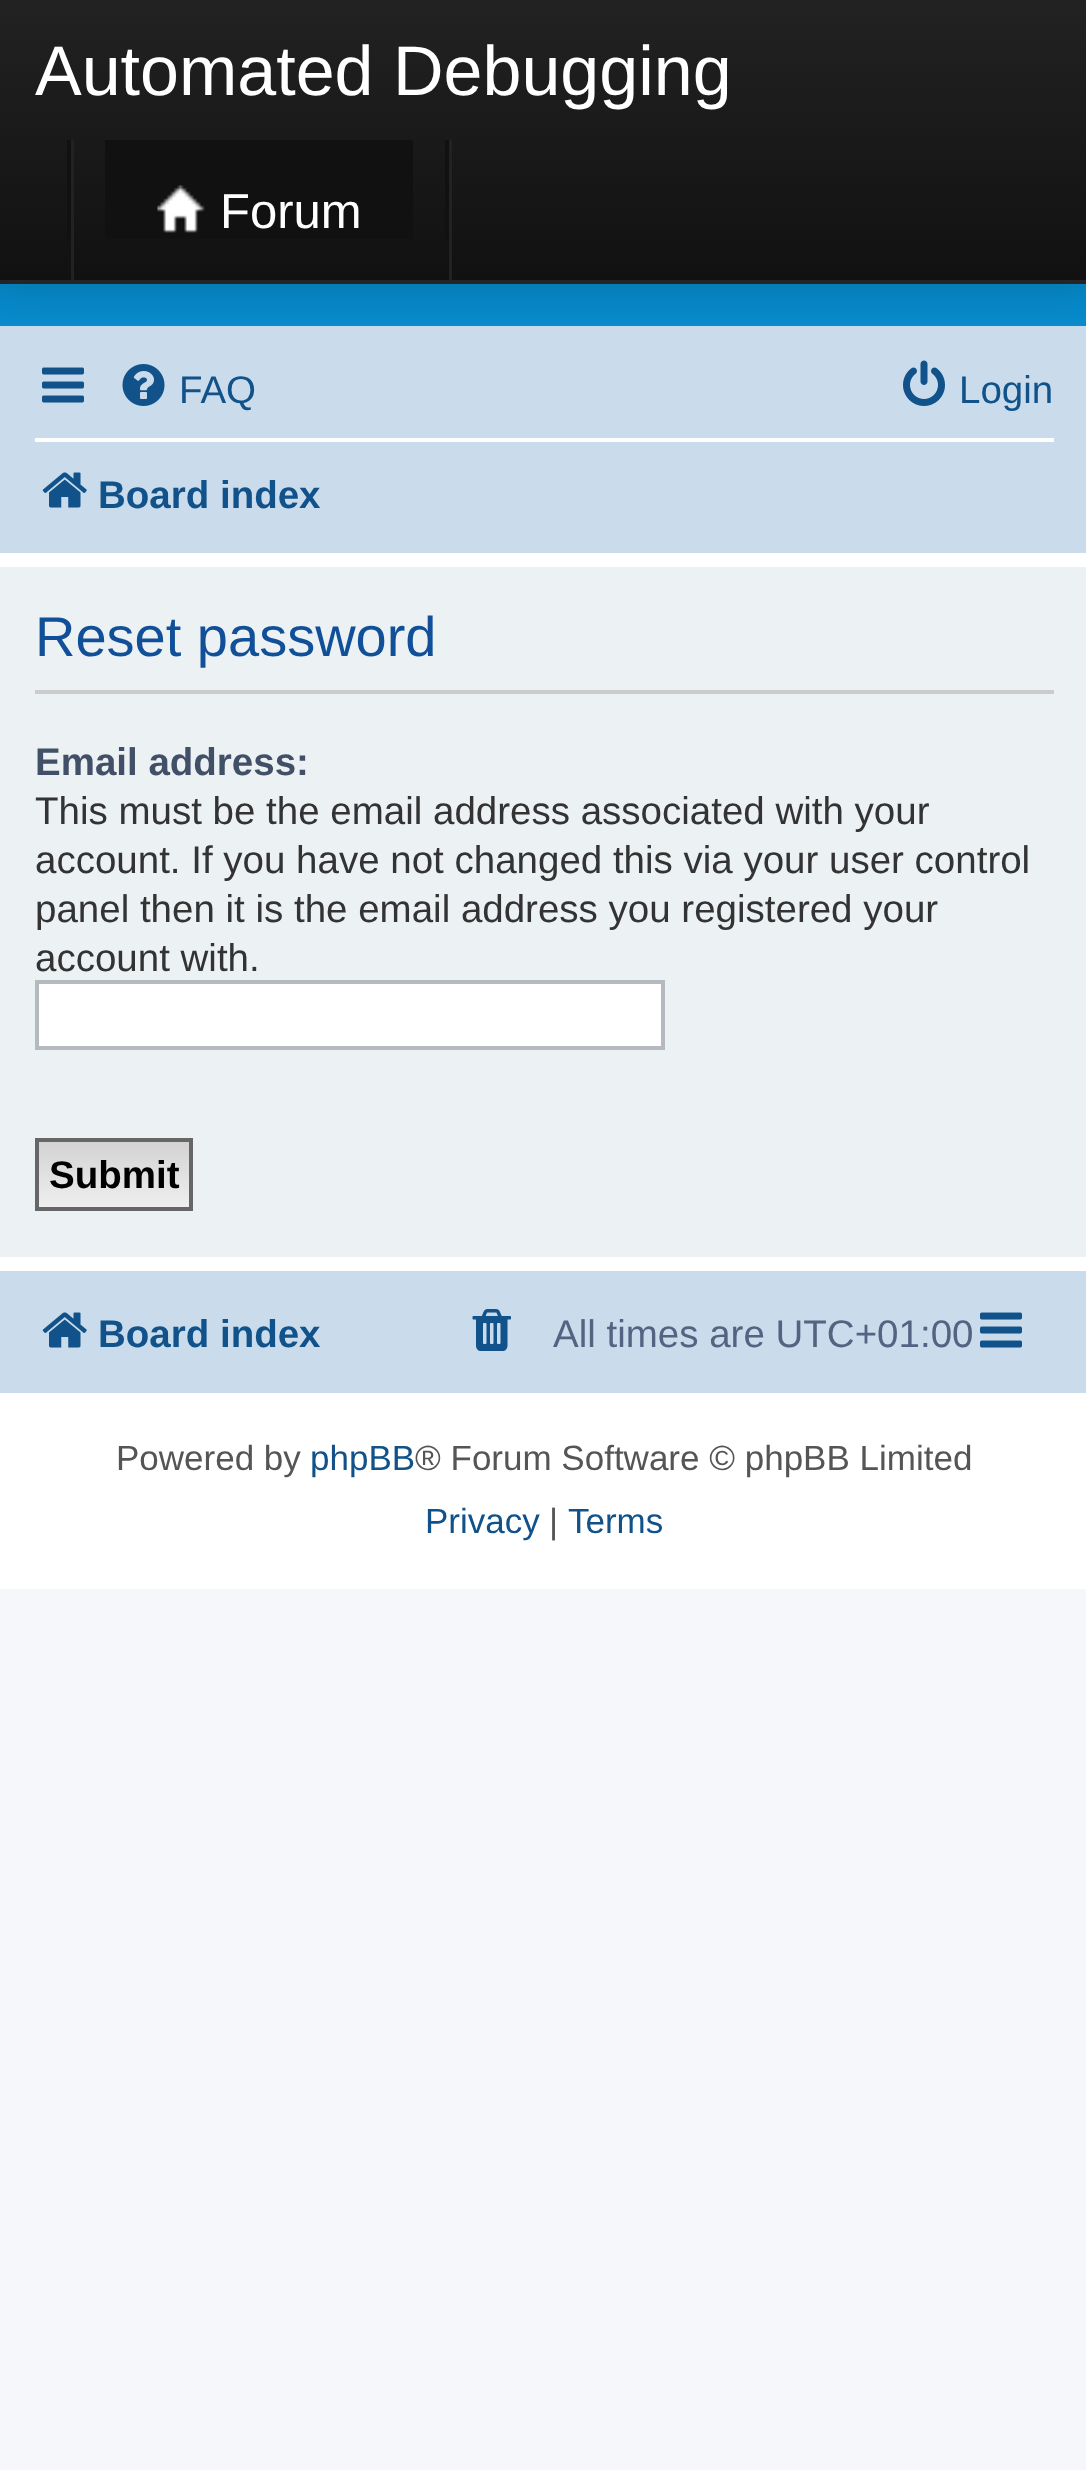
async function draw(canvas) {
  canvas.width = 1086
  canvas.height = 2470
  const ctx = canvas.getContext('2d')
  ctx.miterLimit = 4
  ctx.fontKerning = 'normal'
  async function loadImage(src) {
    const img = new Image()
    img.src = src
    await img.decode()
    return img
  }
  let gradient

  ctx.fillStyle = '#f5f7fa'
  ctx.fillRect(0, 0, 1086, 2470)
  gradient = ctx.createLinearGradient(544, 175, 544, 497)
  gradient.addColorStop(0, '#6aceff')
  gradient.addColorStop(0.02, '#0076b1')
  gradient.addColorStop(1, '#12a3eb')
  ctx.fillStyle = gradient
  ctx.fillRect(0, 284, 1086, 42)
  ctx.fillStyle = '#cadceb'
  ctx.fillRect(0, 326, 1086, 227)
  ctx.fillStyle = '#0000001a'
  ctx.filter = 'blur(17.5px)'
  ctx.beginPath()
  ctx.rect(0, 4, 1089, 283)
  ctx.fill()
  ctx.filter = 'none'
  gradient = ctx.createLinearGradient(544, 0, 544, 280)
  gradient.addColorStop(0, '#222')
  gradient.addColorStop(1, '#111')
  ctx.fillStyle = gradient
  ctx.fillRect(0, 0, 1086, 280)
  ctx.fillStyle = '#252525'
  ctx.fillRect(0, 280, 1086, 4)
  ctx.font = '70px Liberation Sans'
  ctx.fillStyle = '#fff'
  ctx.fillText('Automated Debugging', 35, 95)
  ctx.fillStyle = '#222'
  ctx.fillRect(71, 140, 3, 140)
  ctx.fillStyle = '#111'
  ctx.fillRect(67, 140, 4, 99)
  ctx.fillRect(105, 140, 308, 99)
  ctx.drawImage(await loadImage('image0.png'), 157, 185, 48, 48)
  ctx.font = '49px Liberation Sans'
  ctx.fillStyle = '#fff'
  ctx.fillText('Forum', 220, 228)
  ctx.fillStyle = '#222'
  ctx.fillRect(449, 140, 3, 140)
  ctx.fillStyle = '#111'
  ctx.fillRect(445, 140, 4, 99)
  ctx.fillStyle = '#fff'
  ctx.fillRect(0, 553, 1086, 1036)
  ctx.drawImage(await loadImage('image1.png'), 42, 367, 42, 36)
  ctx.drawImage(await loadImage('image2.png'), 122, 364, 43, 42)
  ctx.font = '38.5px Liberation Sans'
  ctx.fillStyle = '#105289'
  ctx.fillText('FAQ', 179, 403)
  ctx.drawImage(await loadImage('image3.png'), 903, 360, 42, 46)
  ctx.fillText('Login', 959, 403)
  ctx.fillStyle = '#fff'
  ctx.fillRect(35, 438, 1019, 4)
  ctx.drawImage(await loadImage('image4.png'), 42, 472, 45, 36)
  ctx.font = 'bold 38.5px Liberation Sans'
  ctx.fillStyle = '#105289'
  ctx.fillText('Board index', 98, 508)
  ctx.fillStyle = '#ecf1f3'
  ctx.fillRect(0, 567, 1086, 690)
  ctx.fillStyle = '#ccc'
  ctx.fillRect(35, 690, 1019, 4)
  ctx.font = '56px Liberation Sans'
  ctx.fillStyle = '#115098'
  ctx.fillText('Reset password', 35, 656)
  ctx.font = 'bold 38.5px Liberation Sans'
  ctx.fillStyle = '#425067'
  ctx.fillText('Email address:', 35, 775)
  ctx.font = '38.5px Liberation Sans'
  ctx.fillStyle = '#333'
  ctx.fillText('This must be the email address associated with your', 35, 824)
  ctx.fillText('account. If you have not changed this via your user control', 35, 873)
  ctx.fillText('panel then it is the email address you registered your', 35, 922)
  ctx.fillText('account with.', 35, 971)
  ctx.fillStyle = '#fff'
  ctx.beginPath()
  ctx.rect(37, 982, 626, 66)
  ctx.fill()
  ctx.strokeStyle = '#b4bac0'
  ctx.lineWidth = 4
  ctx.stroke()
  gradient = ctx.createLinearGradient(114, 1141, 114, 1208)
  gradient.addColorStop(0, '#d2d2d2')
  gradient.addColorStop(1, '#efefef')
  ctx.fillStyle = gradient
  ctx.fillRect(39, 1142, 150, 65)
  ctx.strokeStyle = '#666'
  ctx.strokeRect(37, 1140, 154, 69)
  ctx.font = 'bold 38.5px Liberation Sans'
  ctx.fillStyle = '#000'
  ctx.fillText('Submit', 49, 1188)
  ctx.fillStyle = '#cadceb'
  ctx.fillRect(0, 1271, 1086, 122)
  ctx.drawImage(await loadImage('image4.png'), 42, 1312, 45, 36)
  ctx.fillStyle = '#105289'
  ctx.fillText('Board index', 98, 1347)
  ctx.drawImage(await loadImage('image5.png'), 472, 1309, 39, 42)
  ctx.font = '38.5px Liberation Sans'
  ctx.fillStyle = '#536482'
  ctx.fillText('All times are UTC+01:00', 553, 1347)
  ctx.drawImage(await loadImage('image1.png'), 980, 1312, 42, 36)
  ctx.font = '35px Liberation Sans'
  ctx.fillStyle = '#555'
  ctx.fillText('Powered by', 116, 1470)
  ctx.fillStyle = '#105289'
  ctx.fillText('phpBB', 310, 1470)
  ctx.fillStyle = '#555'
  ctx.fillText('® Forum Software © phpBB Limited', 415, 1470)
  ctx.fillStyle = '#105289'
  ctx.fillText('Privacy', 425, 1533)
  ctx.fillStyle = '#555'
  ctx.fillText('|', 549, 1533)
  ctx.fillStyle = '#105289'
  ctx.fillText('Terms', 568, 1533)
}

draw(document.querySelector('canvas'))
